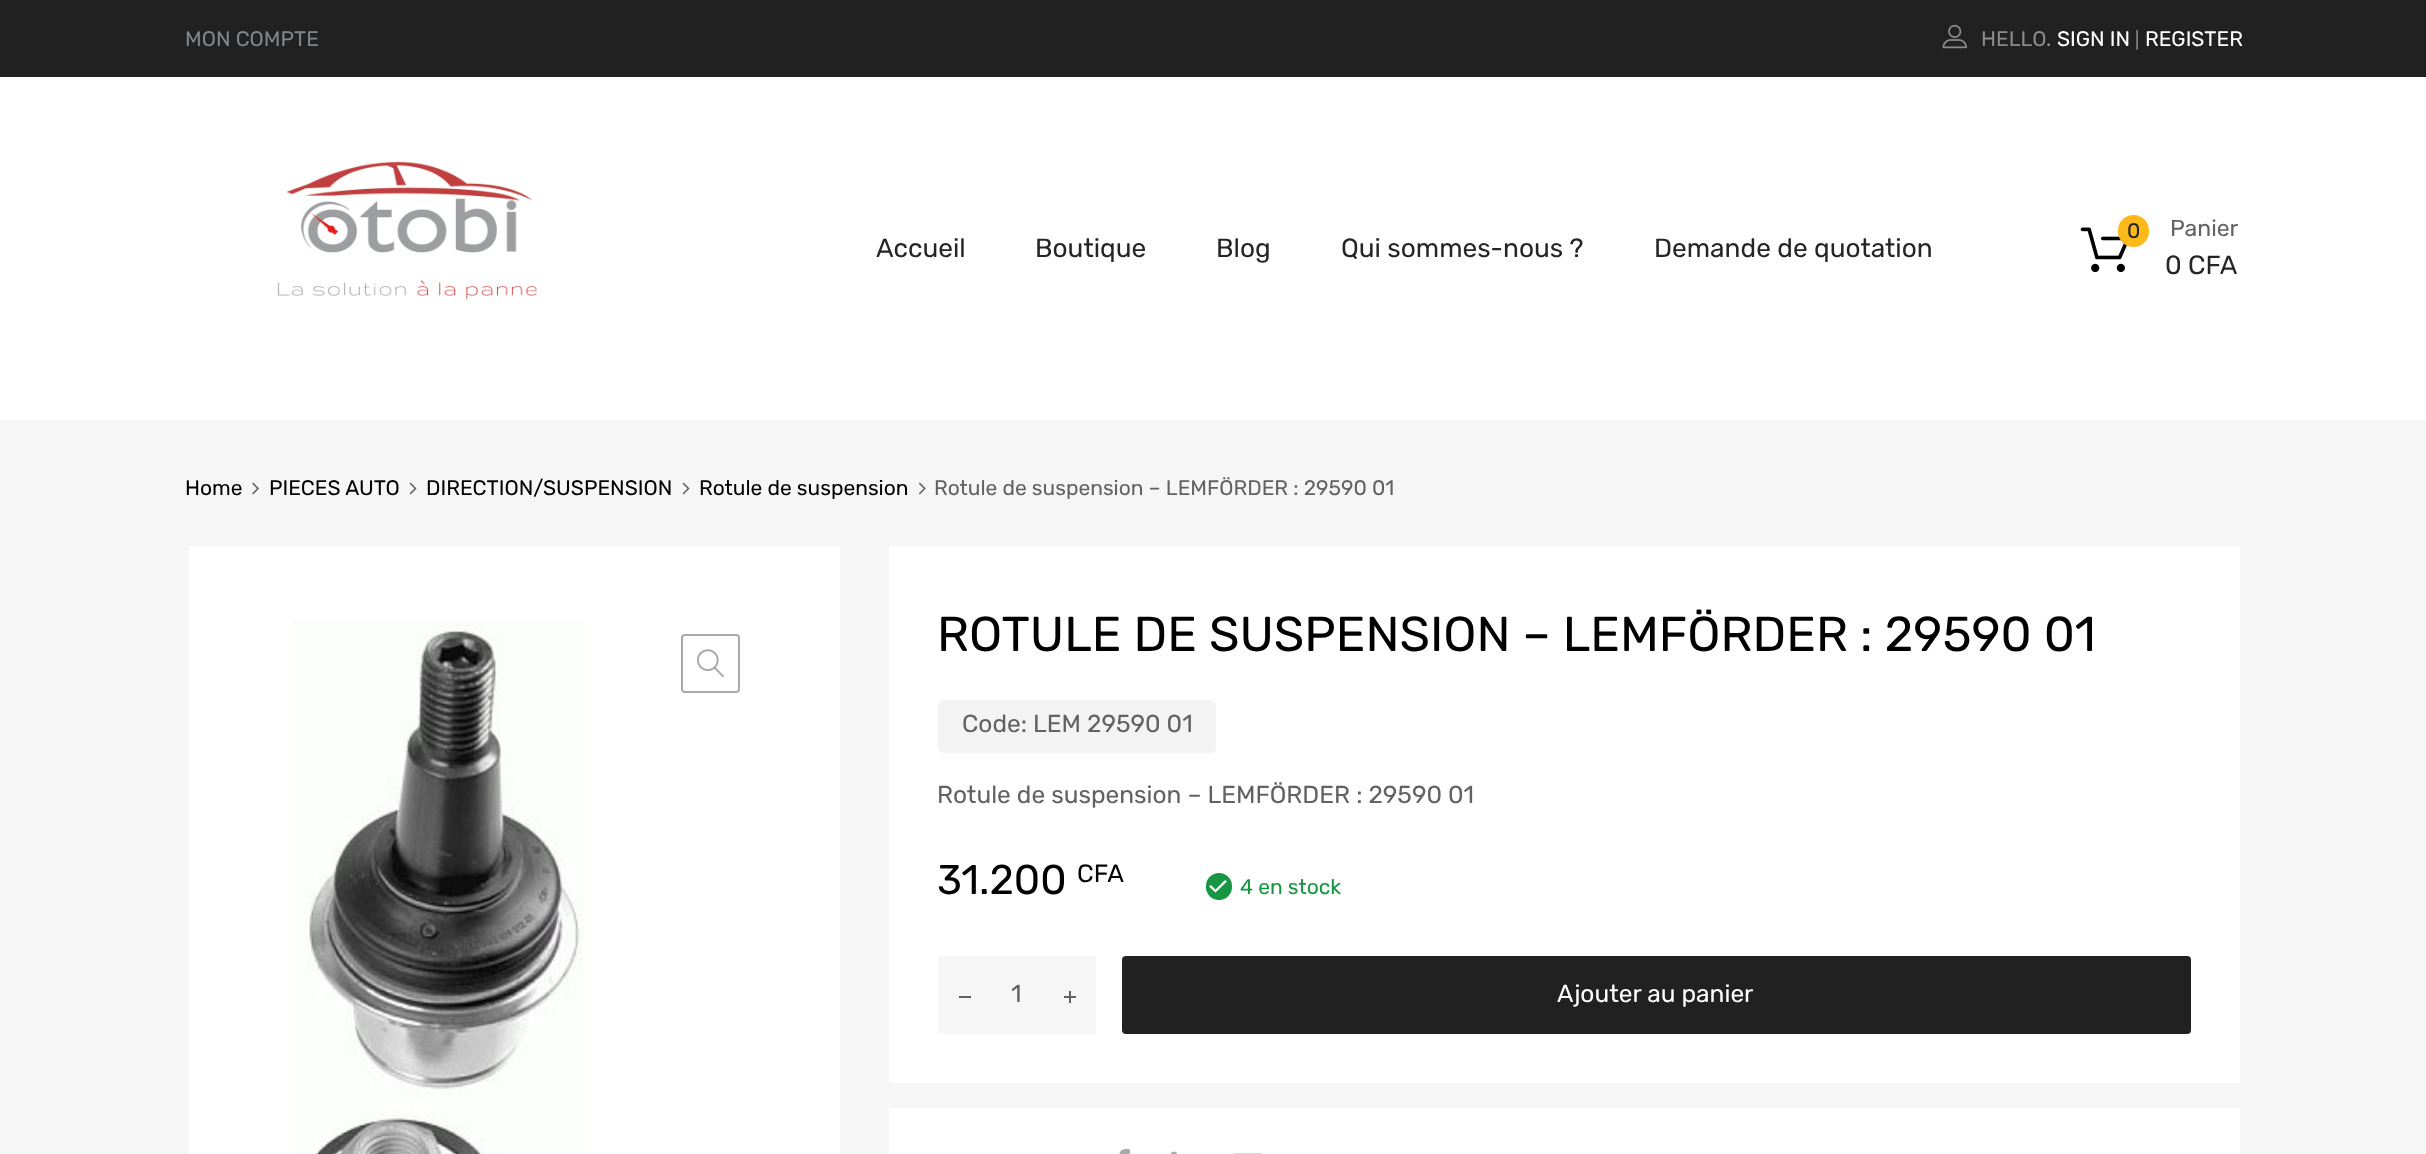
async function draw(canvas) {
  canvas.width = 2426
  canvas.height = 1154
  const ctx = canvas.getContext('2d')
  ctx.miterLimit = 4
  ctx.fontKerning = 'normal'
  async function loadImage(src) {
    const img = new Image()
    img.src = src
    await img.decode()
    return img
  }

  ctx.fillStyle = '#f6f6f6'
  ctx.fillRect(0, 0, 2426, 1154)
  ctx.fillStyle = '#fff'
  ctx.fillRect(0, 77, 2426, 343)
  ctx.fillStyle = '#212121'
  ctx.fillRect(0, 0, 2426, 77)
  ctx.font = '21px Rubik'
  ctx.fillStyle = '#81858c'
  ctx.fillText('MON COMPTE', 185, 46)
  ctx.drawImage(await loadImage('image0.png'), 1942, 24, 25, 25)
  ctx.fillStyle = '#8b8b8b'
  ctx.fillText('HELLO.', 1981, 46)
  ctx.fillStyle = '#fff'
  ctx.fillText('SIGN IN', 2057, 46)
  ctx.font = '18px Rubik'
  ctx.fillStyle = '#8b8b8b'
  ctx.fillText('|', 2135, 46)
  ctx.font = '21px Rubik'
  ctx.fillStyle = '#fff'
  ctx.fillText('REGISTER', 2145, 46)
  ctx.drawImage(await loadImage('image1.png'), 277, 161, 260, 139)
  ctx.font = '26.25px Rubik'
  ctx.fillStyle = '#252525'
  ctx.fillText('Accueil', 876, 257)
  ctx.fillText('Boutique', 1035, 257)
  ctx.fillText('Blog', 1216, 257)
  ctx.fillText('Qui sommes-nous ?', 1341, 257)
  ctx.fillText('Demande de quotation', 1654, 257)
  ctx.drawImage(await loadImage('image2.png'), 2080, 227, 47, 46)
  ctx.fillStyle = '#fdb819'
  ctx.beginPath()
  ctx.roundRect(2118, 215, 31, 32, 15.5)
  ctx.fill()
  ctx.font = '21px Rubik'
  ctx.fillStyle = '#252525'
  ctx.fillText('0', 2127, 238)
  ctx.font = '23px Rubik'
  ctx.fillStyle = '#626262'
  ctx.fillText('Panier', 2170, 236)
  ctx.font = '26.25px Rubik'
  ctx.fillStyle = '#252525'
  ctx.fillText('0 CFA', 2165, 274)
  ctx.font = '21px Rubik'
  ctx.fillStyle = '#000'
  ctx.fillText('Home', 185, 495)
  ctx.drawImage(await loadImage('image3.png'), 252, 482, 7, 13)
  ctx.fillText('PIECES AUTO', 269, 495)
  ctx.drawImage(await loadImage('image4.png'), 409, 482, 8, 13)
  ctx.fillText('DIRECTION/SUSPENSION', 426, 495)
  ctx.drawImage(await loadImage('image4.png'), 682, 482, 8, 13)
  ctx.fillText('Rotule de suspension', 699, 495)
  ctx.drawImage(await loadImage('image5.png'), 919, 482, 7, 13)
  ctx.fillStyle = '#626262'
  ctx.fillText('Rotule de suspension – LEMFÖRDER : 29590 01', 934, 495)
  ctx.fillStyle = '#fff'
  ctx.fillRect(189, 546, 651, 608)
  ctx.drawImage(await loadImage('image6.png'), 293, 620, 292, 534)
  ctx.beginPath()
  ctx.roundRect(682, 635, 57, 57, 3)
  ctx.strokeStyle = '#a9a9a9'
  ctx.lineWidth = 2
  ctx.stroke()
  ctx.drawImage(await loadImage('image7.png'), 696, 649, 28, 29)
  ctx.fillRect(889, 546, 1351, 537)
  ctx.font = '49px Rubik'
  ctx.fillStyle = '#000'
  ctx.fillText('ROTULE DE SUSPENSION – LEMFÖRDER : 29590 01', 937, 651)
  ctx.fillStyle = '#f3f3f3'
  ctx.beginPath()
  ctx.roundRect(938, 700, 278, 53, 5)
  ctx.fill()
  ctx.font = '24.5px Rubik'
  ctx.fillStyle = '#626262'
  ctx.fillText('Code: LEM 29590 01', 962, 732)
  ctx.fillText('Rotule de suspension – LEMFÖRDER : 29590 01', 937, 803)
  ctx.font = '41.5px Rubik'
  ctx.fillStyle = '#000'
  ctx.fillText('31.200', 937, 894)
  ctx.font = '25px Rubik'
  ctx.fillText('CFA', 1077, 882)
  ctx.fillStyle = '#169543'
  ctx.beginPath()
  ctx.roundRect(1206, 873, 26, 27, 13)
  ctx.fill()
  ctx.fillStyle = '#fff'
  ctx.beginPath()
  ctx.moveTo(1225, 880)
  ctx.lineTo(1215.5, 889.5)
  ctx.lineTo(1211, 885)
  ctx.lineTo(1209, 886.5)
  ctx.lineTo(1215.5, 892.5)
  ctx.lineTo(1227, 881.5)
  ctx.closePath()
  ctx.fill()
  ctx.font = '21px Rubik'
  ctx.fillStyle = '#169543'
  ctx.fillText('4 en stock', 1240, 894)
  ctx.fillStyle = '#f6f6f6'
  ctx.fillRect(938, 956, 158, 78)
  ctx.fillStyle = '#626262'
  ctx.fillRect(959, 996, 12, 2)
  ctx.font = '24.5px Rubik'
  ctx.fillText('1', 1011, 1002)
  ctx.fillRect(1069, 991, 2, 12)
  ctx.fillRect(1064, 996, 12, 2)
  ctx.fillStyle = '#212121'
  ctx.beginPath()
  ctx.roundRect(1122, 956, 1069, 78, 4)
  ctx.fill()
  ctx.fillStyle = '#fff'
  ctx.fillText('Ajouter au panier', 1557, 1002)
  ctx.fillRect(889, 1108, 1351, 46)
  ctx.drawImage(await loadImage('image8.png'), 1119, 1149, 11, 5)
  ctx.drawImage(await loadImage('image9.png'), 1170, 1151, 7, 3)
  ctx.drawImage(await loadImage('image10.png'), 1233, 1153, 29, 1)
}

draw(document.querySelector('canvas'))
